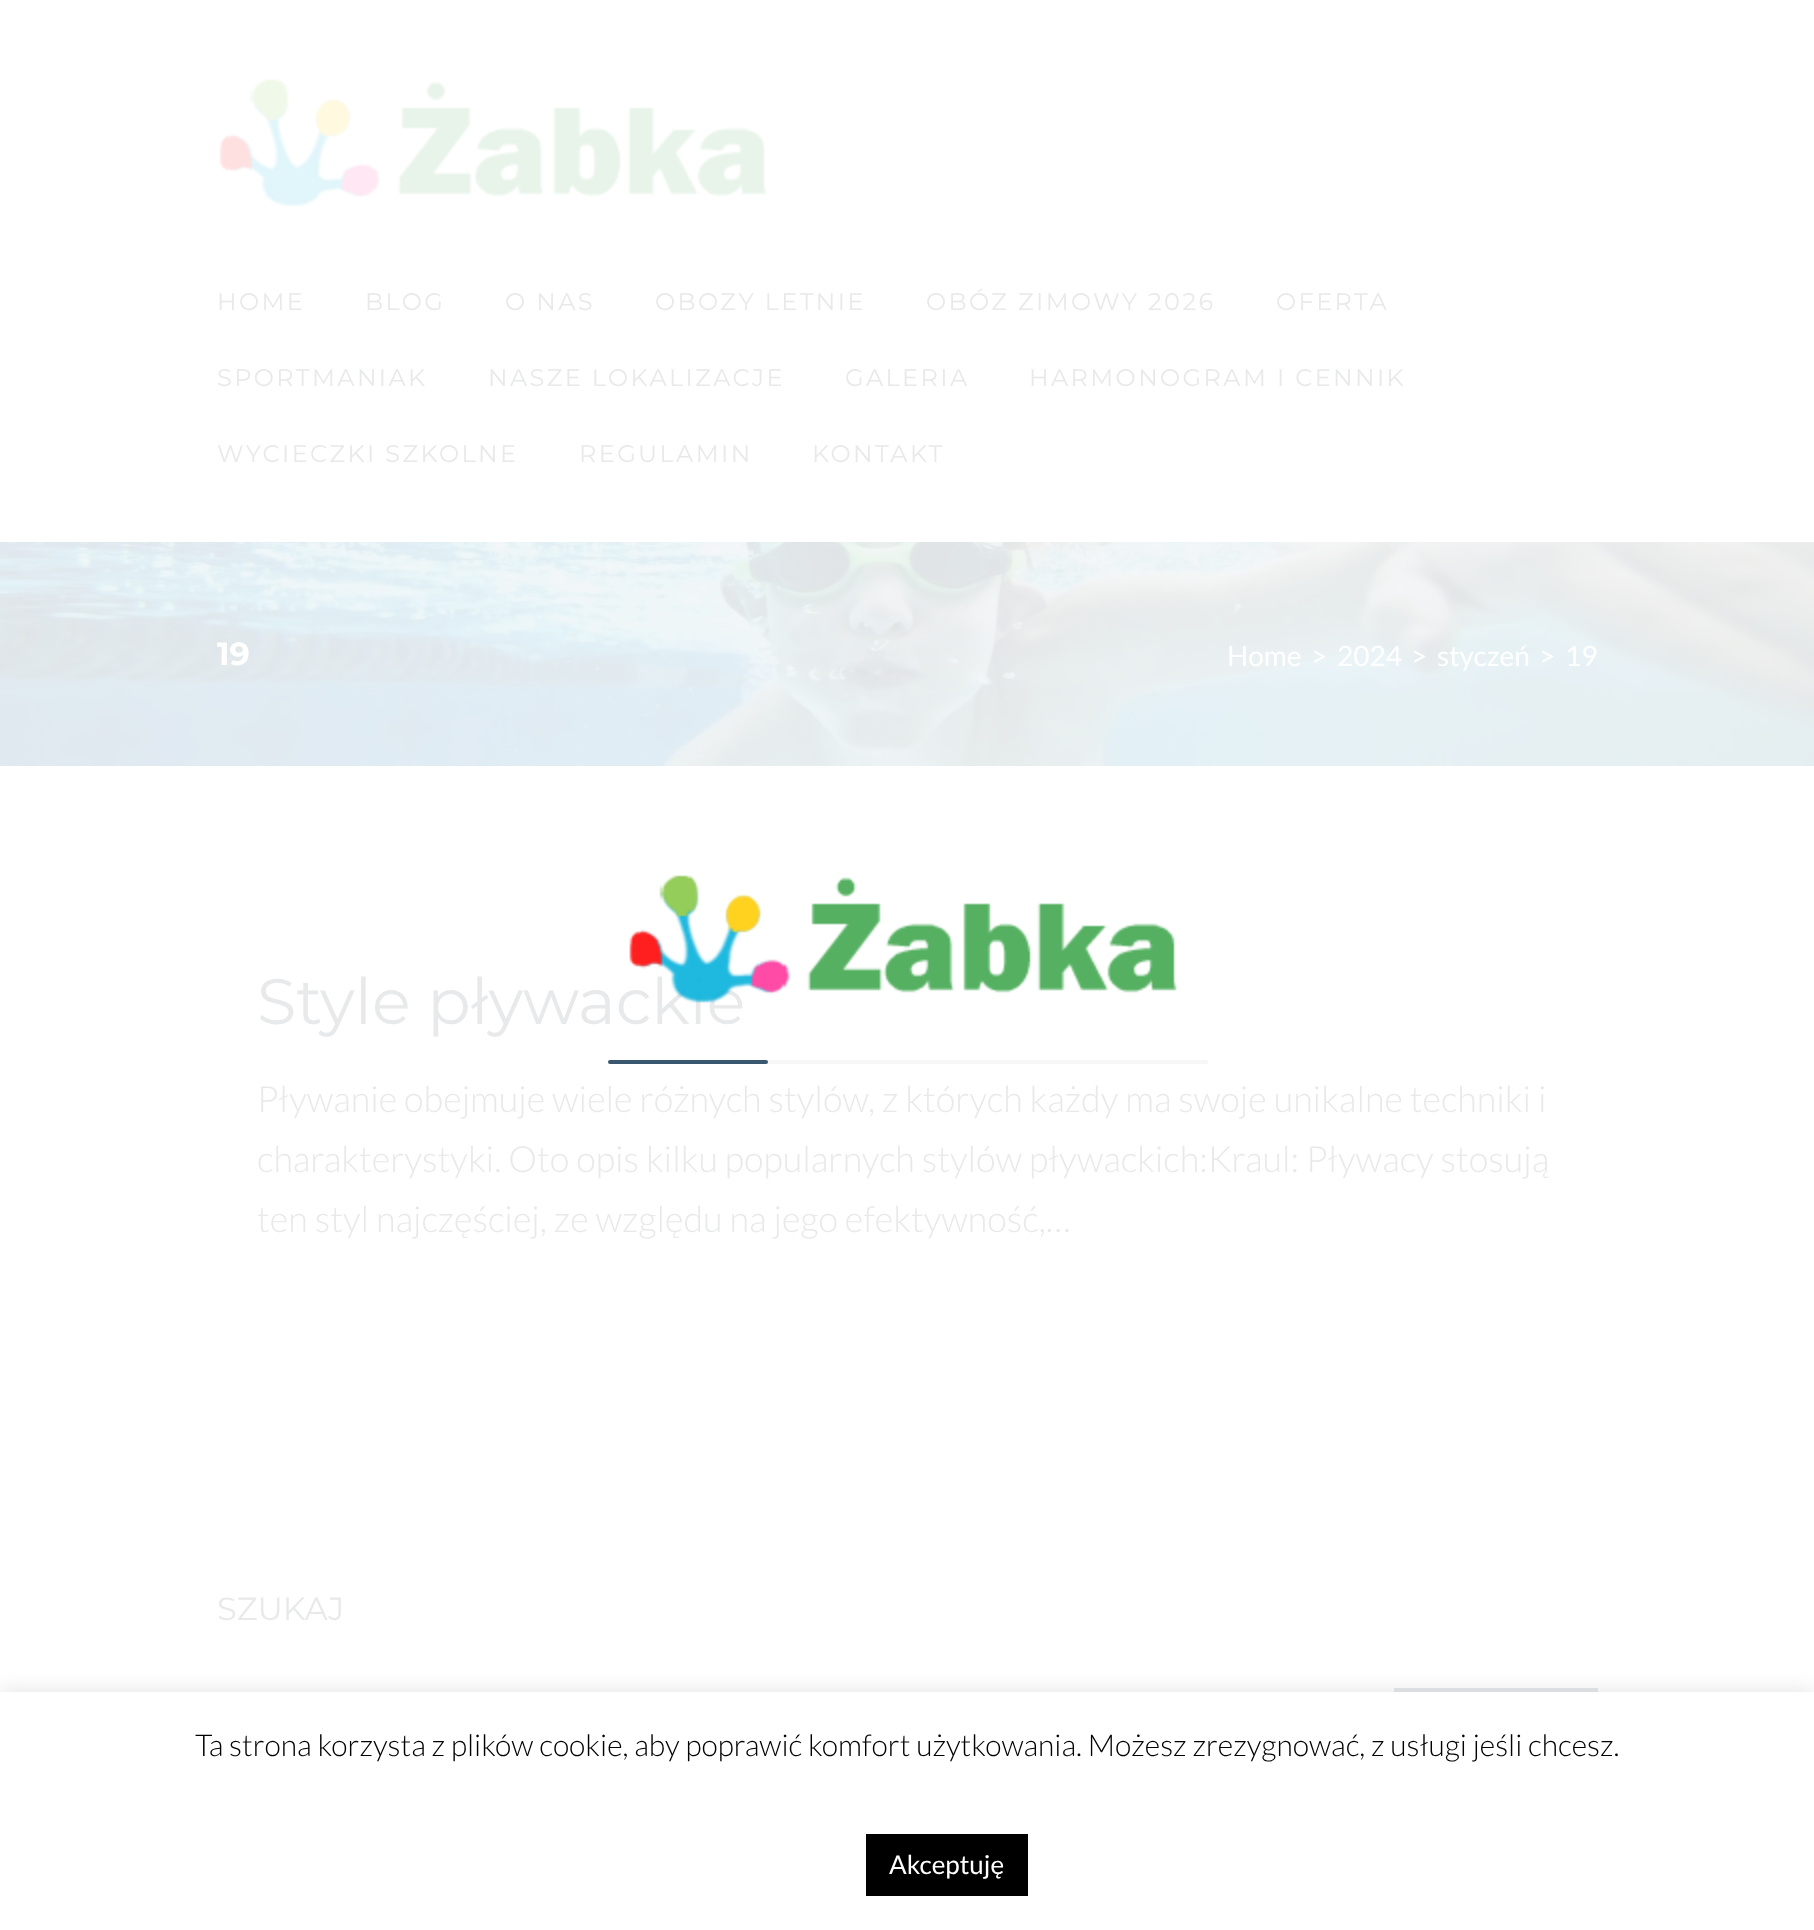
async function draw(canvas) {
  canvas.width = 1814
  canvas.height = 1930
  const ctx = canvas.getContext('2d')
  ctx.miterLimit = 4
  ctx.fontKerning = 'normal'
  async function loadImage(src) {
    const img = new Image()
    img.src = src
    await img.decode()
    return img
  }

  ctx.fillStyle = '#fff'
  ctx.fillRect(0, 0, 1814, 1930)
  ctx.drawImage(await loadImage('image0.png'), 219, 79, 548, 128)
  ctx.letterSpacing = '2.4px'
  ctx.font = '24px Montserrat'
  ctx.fillStyle = '#e8e9ea'
  ctx.fillText('HOME', 217, 310)
  ctx.fillText('BLOG', 365, 310)
  ctx.fillText('O NAS', 505, 310)
  ctx.fillText('OBOZY LETNIE', 655, 310)
  ctx.fillText('OBÓZ ZIMOWY 2026', 926, 310)
  ctx.fillText('OFERTA', 1276, 310)
  ctx.fillText('SPORTMANIAK', 217, 386)
  ctx.fillText('NASZE LOKALIZACJE', 488, 386)
  ctx.fillText('GALERIA', 845, 386)
  ctx.fillText('HARMONOGRAM I CENNIK', 1029, 386)
  ctx.fillText('WYCIECZKI SZKOLNE', 217, 462)
  ctx.fillText('REGULAMIN', 579, 462)
  ctx.fillText('KONTAKT', 812, 462)
  ctx.drawImage(await loadImage('image1.png'), 0, 542, 1814, 224)
  ctx.letterSpacing = '0px'
  ctx.font = 'bold 32px Montserrat'
  ctx.fillStyle = '#fff'
  ctx.fillText('19', 217, 665)
  ctx.font = '28px Lato'
  ctx.fillText('Home', 1227, 666)
  ctx.fillText('>', 1311, 666)
  ctx.fillText('2024', 1337, 666)
  ctx.fillText('>', 1411, 666)
  ctx.fillText('styczeń', 1437, 666)
  ctx.fillText('>', 1539, 666)
  ctx.fillText('19', 1565, 666)
  ctx.drawImage(await loadImage('image2.png'), 556, 919, 24, 19)
  ctx.font = '64px Montserrat'
  ctx.fillStyle = '#e8e9ea'
  ctx.fillText('Style pływackie', 257, 1024)
  ctx.font = '300 36px Lato'
  ctx.fillText('Pływanie obejmuje wiele różnych stylów, z których każdy ma swoje unikalne techniki i', 257, 1112)
  ctx.fillText('charakterystyki. Oto opis kilku popularnych stylów pływackich:Kraul: Pływacy stosują', 257, 1172)
  ctx.fillText('ten styl najczęściej, ze względu na jego efektywność,…', 257, 1232)
  ctx.drawImage(await loadImage('image3.png'), 395, 1295, 11, 18)
  ctx.font = '32px Montserrat'
  ctx.fillText('SZUKAJ', 217, 1620)
  ctx.fillStyle = '#e4e8ec'
  ctx.fillRect(1394, 1688, 204, 4)
  ctx.drawImage(await loadImage('image4.png'), 629, 875, 548, 128)
  ctx.fillStyle = '#f7f7f7'
  ctx.beginPath()
  ctx.roundRect(608, 1060, 600, 4, 2)
  ctx.fill()
  ctx.fillStyle = '#395870'
  ctx.beginPath()
  ctx.roundRect(608, 1060, 160, 4, 2)
  ctx.fill()
  ctx.fillStyle = '#acabab4d'
  ctx.filter = 'blur(10px)'
  ctx.beginPath()
  ctx.rect(0, 1690, 1814, 238)
  ctx.fill()
  ctx.filter = 'none'
  ctx.fillStyle = '#fff'
  ctx.fillRect(0, 1692, 1814, 238)
  ctx.font = '300 30px Lato'
  ctx.fillStyle = '#000'
  ctx.fillText('Ta strona korzysta z plików cookie, aby poprawić komfort użytkowania. Możesz zrezygnować, z usługi jeśli chcesz.', 195, 1756)
  ctx.fillRect(866, 1834, 162, 62)
  ctx.font = '26px Lato'
  ctx.fillStyle = '#fff'
  ctx.fillText('Akceptuję', 889, 1874)
}

draw(document.querySelector('canvas'))
